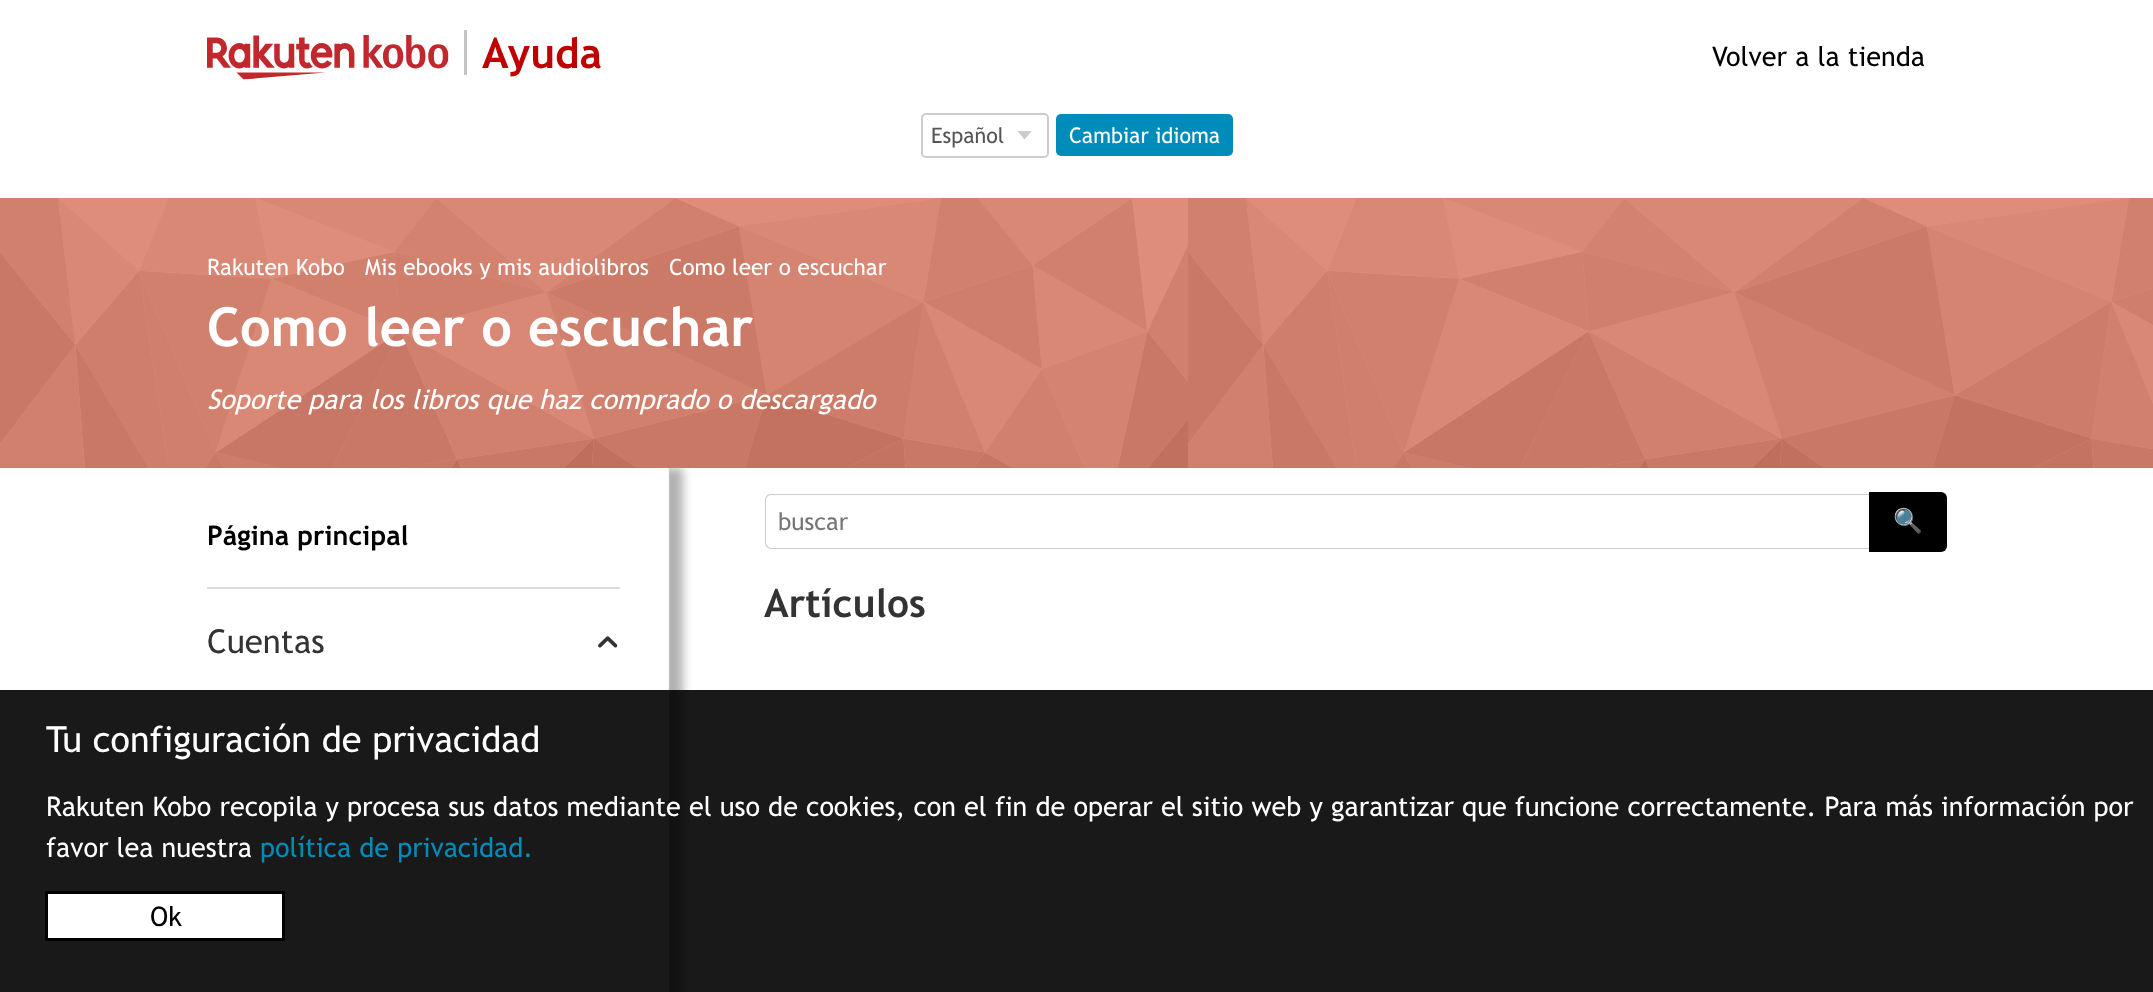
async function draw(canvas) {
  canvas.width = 2153
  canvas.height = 992
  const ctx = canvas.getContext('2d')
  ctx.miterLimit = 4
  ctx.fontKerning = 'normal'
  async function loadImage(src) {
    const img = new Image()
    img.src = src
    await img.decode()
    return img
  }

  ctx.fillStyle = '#fff'
  ctx.fillRect(0, 0, 2153, 992)
  ctx.drawImage(await loadImage('image0.png'), 207, 35, 242, 45)
  ctx.fillStyle = '#c4c4c2'
  ctx.fillRect(464, 30, 3, 45)
  ctx.font = 'bold 42px Trebuchet MS'
  ctx.fillStyle = '#bf0000'
  ctx.fillText('Ayuda', 482, 68)
  ctx.font = '27px Trebuchet MS'
  ctx.fillStyle = '#000'
  ctx.fillText('Volver a la tienda', 1712, 66)
  ctx.drawImage(await loadImage('image1.png'), 1017, 131, 15, 9)
  ctx.beginPath()
  ctx.roundRect(922, 114, 126, 43, 4)
  ctx.strokeStyle = '#ccc'
  ctx.lineWidth = 2
  ctx.stroke()
  ctx.font = '21.5px Trebuchet MS'
  ctx.fillStyle = '#555'
  ctx.fillText('Español', 931, 143)
  ctx.fillStyle = '#008cba'
  ctx.beginPath()
  ctx.roundRect(1056, 114, 177, 42, 5)
  ctx.fill()
  ctx.fillStyle = '#fff'
  ctx.fillText('Cambiar idioma', 1069, 143)
  ctx.save()
  ctx.beginPath()
  ctx.moveTo(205, 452)
  ctx.lineTo(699, 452)
  ctx.lineTo(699, 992)
  ctx.lineTo(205, 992)
  ctx.closePath()
  ctx.moveTo(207, 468)
  ctx.lineTo(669, 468)
  ctx.lineTo(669, 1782)
  ctx.lineTo(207, 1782)
  ctx.closePath()
  ctx.clip('evenodd')
  ctx.fillStyle = '#0000004d'
  ctx.filter = 'blur(5px)'
  ctx.beginPath()
  ctx.rect(221, 468, 462, 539)
  ctx.fill()
  ctx.filter = 'none'
  ctx.restore()
  ctx.drawImage(await loadImage('image2.png'), 0, 198, 2153, 270)
  ctx.fillStyle = '#d2492a99'
  ctx.fillRect(0, 198, 2153, 270)
  ctx.font = '22.5px Trebuchet MS'
  ctx.fillStyle = '#fff'
  ctx.fillText('Rakuten Kobo', 207, 275)
  ctx.fillText('Mis ebooks y mis audiolibros', 365, 275)
  ctx.fillText('Como leer o escuchar', 669, 275)
  ctx.font = 'bold 54px Trebuchet MS'
  ctx.fillText('Como leer o escuchar', 207, 346)
  ctx.font = 'italic 27px Trebuchet MS'
  ctx.fillText('Soporte para los libros que haz comprado o descargado', 207, 409)
  ctx.fillStyle = '#dfdfdf4d'
  ctx.fillRect(668, 468, 2, 524)
  ctx.font = 'bold 27px Trebuchet MS'
  ctx.fillStyle = '#000'
  ctx.fillText('Página principal', 207, 545)
  ctx.fillStyle = '#dddadc'
  ctx.fillRect(207, 587, 413, 2)
  ctx.font = '33px Trebuchet MS'
  ctx.fillStyle = '#333'
  ctx.fillText('Cuentas', 207, 653)
  ctx.drawImage(await loadImage('image3.png'), 598, 636, 20, 12)
  ctx.fillStyle = '#ccc'
  ctx.beginPath()
  ctx.moveTo(771, 494)
  ctx.lineTo(1869, 494)
  ctx.lineTo(1869, 549)
  ctx.lineTo(771, 549)
  ctx.bezierCurveTo(768, 549, 765, 546, 765, 543)
  ctx.lineTo(765, 500)
  ctx.bezierCurveTo(765, 496, 768, 494, 771, 494)
  ctx.closePath()
  ctx.moveTo(771, 495)
  ctx.lineTo(1869, 495)
  ctx.lineTo(1869, 548)
  ctx.lineTo(771, 548)
  ctx.bezierCurveTo(769, 548, 766, 545, 766, 543)
  ctx.lineTo(766, 500)
  ctx.bezierCurveTo(766, 497, 769, 495, 771, 495)
  ctx.closePath()
  ctx.fill('evenodd')
  ctx.font = '24px Trebuchet MS'
  ctx.fillStyle = '#757575'
  ctx.fillText('buscar', 778, 530)
  ctx.fillStyle = '#000'
  ctx.beginPath()
  ctx.roundRect(1869, 492, 78, 60, [0, 6, 6, 0])
  ctx.fill()
  ctx.font = '24px Noto Color Emoji'
  ctx.fillStyle = '#fff'
  ctx.fillText('🔍', 1893, 529)
  ctx.font = 'bold 39px Trebuchet MS'
  ctx.fillStyle = '#333'
  ctx.fillText('Artículos', 764, 617)
  ctx.fillStyle = '#000000e6'
  ctx.fillRect(0, 690, 2153, 302)
  ctx.font = '36px Trebuchet MS'
  ctx.fillStyle = '#fff'
  ctx.fillText('Tu configuración de privacidad', 46, 752)
  ctx.font = '27px Trebuchet MS'
  ctx.fillText('Rakuten Kobo recopila y procesa sus datos mediante el uso de cookies, con el fin de operar el sitio web y garantizar que funcione correctamente. Para más información por', 46, 816)
  ctx.fillText('favor lea nuestra', 46, 857)
  ctx.fillStyle = '#008cba'
  ctx.fillText('política de privacidad.', 260, 857)
  ctx.fillStyle = '#fff'
  ctx.beginPath()
  ctx.rect(46.5, 892.5, 237, 47)
  ctx.fill()
  ctx.strokeStyle = '#000'
  ctx.lineWidth = 3
  ctx.stroke()
  ctx.fillStyle = '#000'
  ctx.fillText('Ok', 150, 926)
}

draw(document.querySelector('canvas'))
